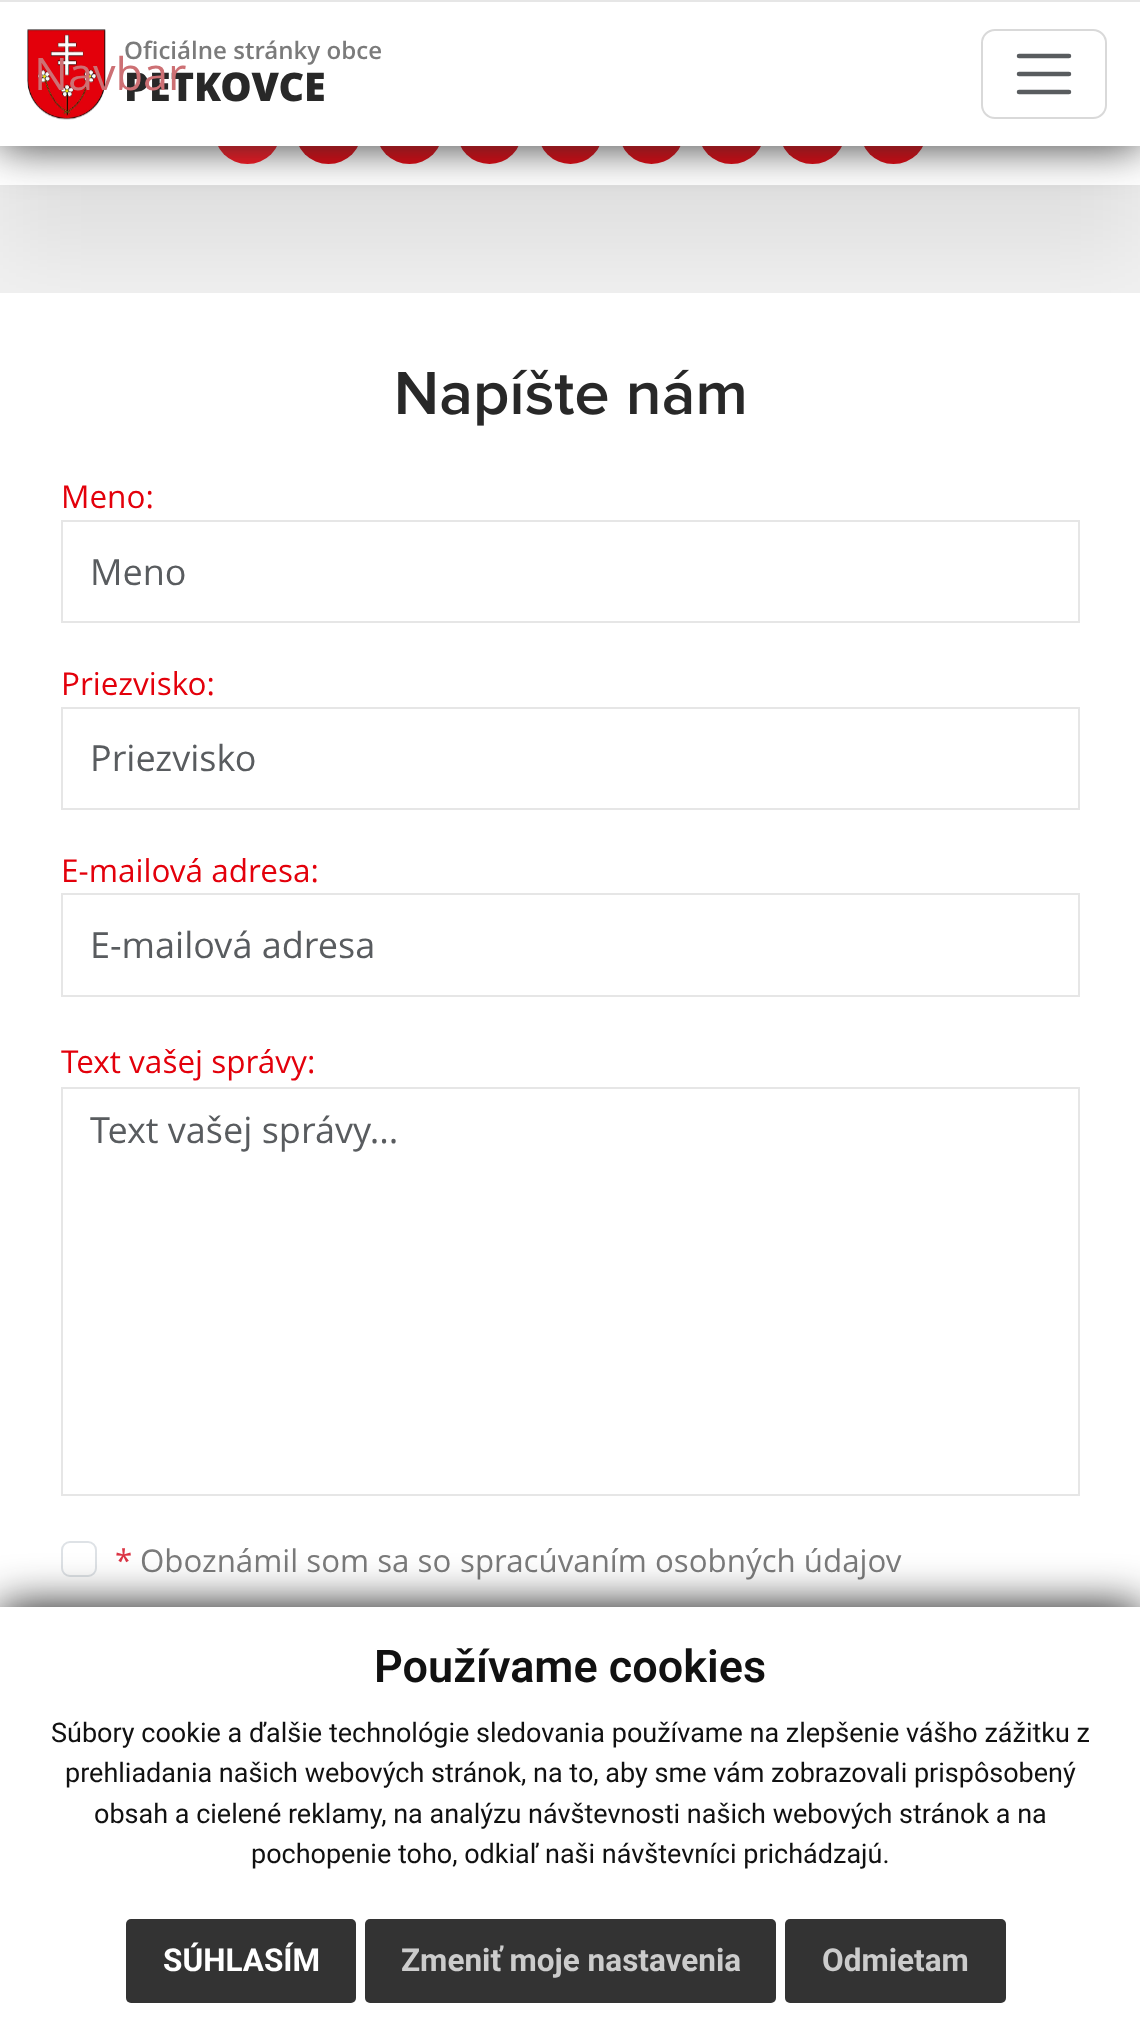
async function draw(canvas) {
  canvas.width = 1140
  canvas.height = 2022
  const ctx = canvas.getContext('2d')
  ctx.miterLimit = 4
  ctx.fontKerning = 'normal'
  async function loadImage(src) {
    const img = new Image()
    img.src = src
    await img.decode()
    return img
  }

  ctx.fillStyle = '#f1f1f1'
  ctx.fillRect(0, 0, 1140, 2022)
  ctx.fillStyle = '#00000012'
  ctx.filter = 'blur(45px)'
  ctx.beginPath()
  ctx.rect(0, -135, 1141, 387)
  ctx.fill()
  ctx.filter = 'none'
  ctx.fillStyle = '#fff'
  ctx.fillRect(0, 146, 1140, 39)
  ctx.fillStyle = '#ff111c'
  ctx.beginPath()
  ctx.roundRect(214, 86, 67, 78, 33.5)
  ctx.fill()
  ctx.fillStyle = '#e3000b'
  ctx.beginPath()
  ctx.roundRect(295, 86, 67, 78, 33.5)
  ctx.fill()
  ctx.beginPath()
  ctx.roundRect(376, 86, 67, 78, 33.5)
  ctx.fill()
  ctx.beginPath()
  ctx.roundRect(457, 86, 65, 78, 32.5)
  ctx.fill()
  ctx.beginPath()
  ctx.roundRect(538, 86, 65, 78, 32.5)
  ctx.fill()
  ctx.beginPath()
  ctx.roundRect(619, 86, 65, 78, 32.5)
  ctx.fill()
  ctx.beginPath()
  ctx.roundRect(698, 86, 67, 78, 33.5)
  ctx.fill()
  ctx.beginPath()
  ctx.roundRect(779, 86, 67, 78, 33.5)
  ctx.fill()
  ctx.beginPath()
  ctx.roundRect(860, 86, 67, 78, 33.5)
  ctx.fill()
  ctx.fillStyle = '#333'
  ctx.filter = 'blur(22.5px)'
  ctx.beginPath()
  ctx.rect(0, 0, 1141, 146)
  ctx.fill()
  ctx.filter = 'none'
  ctx.fillStyle = '#fff'
  ctx.fillRect(0, 2, 1140, 144)
  ctx.fillStyle = '#e6e6e6'
  ctx.fillRect(0, 0, 1140, 2)
  ctx.drawImage(await loadImage('image0.png'), 27, 29, 79, 91)
  ctx.font = '800 39.5px Open Sans'
  ctx.fillStyle = '#282828'
  ctx.fillText('PETKOVCE', 124, 101)
  ctx.font = '45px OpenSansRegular'
  ctx.fillStyle = '#cd7074'
  ctx.fillText('Navbar', 34, 90)
  ctx.beginPath()
  ctx.roundRect(982, 30, 124, 88, 13)
  ctx.strokeStyle = '#d9d9d9'
  ctx.lineWidth = 2
  ctx.stroke()
  ctx.beginPath()
  ctx.moveTo(1019, 56)
  ctx.lineTo(1069, 56)
  ctx.moveTo(1019, 74)
  ctx.lineTo(1069, 74)
  ctx.moveTo(1019, 92)
  ctx.lineTo(1069, 92)
  ctx.strokeStyle = '#595c5f'
  ctx.lineWidth = 4.5
  ctx.lineCap = 'round'
  ctx.stroke()
  ctx.font = '600 24.1px Open Sans'
  ctx.fillStyle = '#7b7b7b'
  ctx.fillText('Oficiálne stránky obce', 124, 59)
  ctx.fillStyle = '#fff'
  ctx.fillRect(0, 293, 1140, 1314)
  ctx.drawImage(await loadImage('image1.png'), 398, 369, 346, 57)
  ctx.font = '31.5px OpenSansRegular'
  ctx.fillStyle = '#e3000b'
  ctx.fillText('Meno:', 61, 508)
  ctx.strokeStyle = '#e6e6e6'
  ctx.lineWidth = 2
  ctx.strokeRect(62, 521, 1017, 101)
  ctx.font = '36px OpenSansRegular'
  ctx.fillStyle = '#595c5f'
  ctx.fillText('Meno', 90, 585)
  ctx.font = '31.5px OpenSansRegular'
  ctx.fillStyle = '#e3000b'
  ctx.fillText('Priezvisko:', 61, 695)
  ctx.strokeRect(62, 708, 1017, 101)
  ctx.font = '36px OpenSansRegular'
  ctx.fillStyle = '#595c5f'
  ctx.fillText('Priezvisko', 90, 771)
  ctx.font = '31.5px OpenSansRegular'
  ctx.fillStyle = '#e3000b'
  ctx.fillText('E-mailová adresa:', 61, 882)
  ctx.strokeRect(62, 894, 1017, 102)
  ctx.font = '36px OpenSansRegular'
  ctx.fillStyle = '#595c5f'
  ctx.fillText('E-mailová adresa', 90, 958)
  ctx.font = '31.5px OpenSansRegular'
  ctx.fillStyle = '#e3000b'
  ctx.fillText('Text vašej správy:', 61, 1073)
  ctx.strokeRect(62, 1088, 1017, 407)
  ctx.font = '36px OpenSansRegular'
  ctx.fillStyle = '#595c5f'
  ctx.fillText('Text vašej správy...', 90, 1143)
  ctx.beginPath()
  ctx.roundRect(62, 1542, 34, 34, 8)
  ctx.strokeStyle = '#dee2e6'
  ctx.stroke()
  ctx.font = '31.25px OpenSansRegular'
  ctx.fillStyle = '#dc3545'
  ctx.fillText('*', 115, 1572)
  ctx.fillStyle = '#7b7b7b'
  ctx.fillText('Oboznámil som sa so', 140, 1572)
  ctx.fillText('spracúvaním osobných údajov', 460, 1572)
  ctx.fillStyle = '#111'
  ctx.filter = 'blur(22.5px)'
  ctx.beginPath()
  ctx.rect(0, 1607, 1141, 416)
  ctx.fill()
  ctx.filter = 'none'
  ctx.fillStyle = '#fff'
  ctx.fillRect(0, 1607, 1140, 415)
  ctx.font = '600 45px Roboto'
  ctx.fillStyle = '#111'
  ctx.fillText('Používame cookies', 374, 1682)
  ctx.font = '27px Roboto'
  ctx.fillText('Súbory cookie a ďalšie technológie sledovania používame na zlepšenie vášho zážitku z', 51, 1742)
  ctx.fillText('prehliadania našich webových stránok, na to, aby sme vám zobrazovali prispôsobený', 65, 1782)
  ctx.fillText('obsah a cielené reklamy, na analýzu návštevnosti našich webových stránok a na', 94, 1823)
  ctx.fillText('pochopenie toho, odkiaľ naši návštevníci prichádzajú.', 251, 1863)
  ctx.fillStyle = '#333'
  ctx.beginPath()
  ctx.roundRect(126, 1919, 230, 84, 5)
  ctx.fill()
  ctx.font = 'bold 31.5px Roboto'
  ctx.fillStyle = '#fff'
  ctx.fillText('SÚHLASÍM', 163, 1971)
  ctx.fillStyle = '#333'
  ctx.beginPath()
  ctx.roundRect(365, 1919, 411, 84, 5)
  ctx.fill()
  ctx.fillStyle = '#ccc'
  ctx.fillText('Zmeniť moje nastavenia', 401, 1971)
  ctx.fillStyle = '#333'
  ctx.beginPath()
  ctx.roundRect(785, 1919, 221, 84, 5)
  ctx.fill()
  ctx.fillStyle = '#ccc'
  ctx.fillText('Odmietam', 822, 1971)
}

draw(document.querySelector('canvas'))
